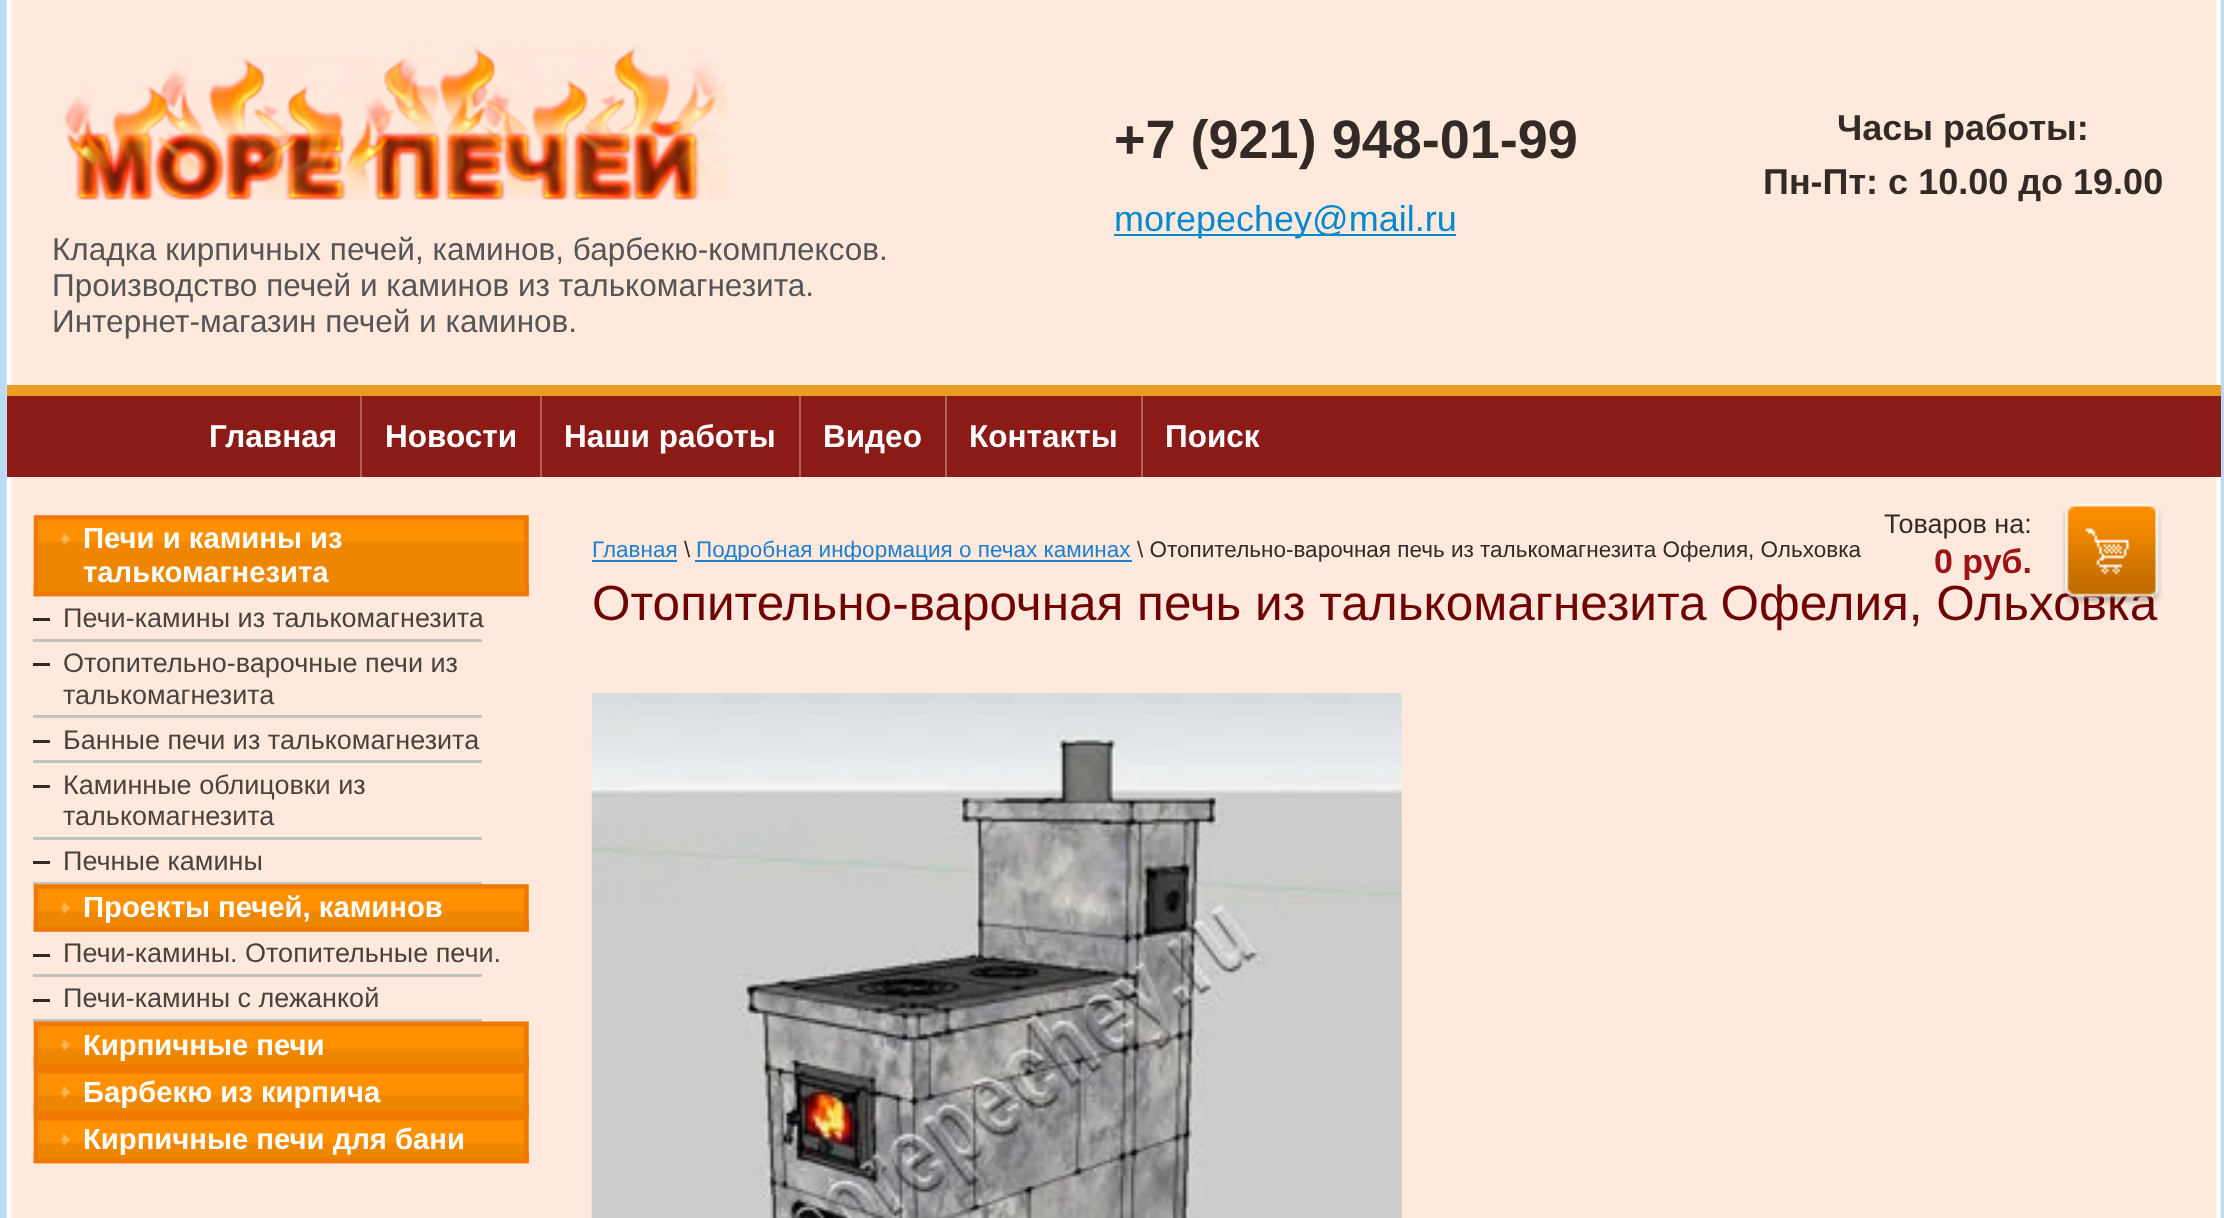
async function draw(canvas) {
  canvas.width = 2224
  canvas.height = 1218
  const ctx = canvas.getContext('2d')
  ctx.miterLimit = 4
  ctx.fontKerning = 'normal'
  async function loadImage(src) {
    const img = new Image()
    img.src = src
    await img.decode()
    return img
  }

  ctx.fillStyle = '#bcdaf3'
  ctx.fillRect(0, 0, 2224, 1218)
  ctx.drawImage(await loadImage('image0.png'), 6, 0, 2215, 1218)
  ctx.font = 'bold 54px Liberation Sans'
  ctx.fillStyle = '#322a25'
  ctx.fillText('+7 (921) 948-01-99', 1114, 158)
  ctx.fillStyle = '#0089d0'
  ctx.fillRect(1114, 234, 342, 2)
  ctx.font = '36px Liberation Sans'
  ctx.fillText('morepechey@mail.ru', 1114, 231)
  ctx.font = 'bold 36px Liberation Sans'
  ctx.fillStyle = '#322a25'
  ctx.fillText('Часы работы:', 1837, 140)
  ctx.fillText('Пн-Пт: с 10.00 до 19.00', 1763, 194)
  ctx.drawImage(await loadImage('image1.png'), 63, 45, 664, 155)
  ctx.font = '31.5px Liberation Sans'
  ctx.fillStyle = '#555'
  ctx.fillText('Кладка кирпичных печей, каминов, барбекю-комплексов.', 52, 260)
  ctx.fillText('Производство печей и каминов из талькомагнезита.', 52, 296)
  ctx.fillText('Интернет-магазин печей и каминов.', 52, 332)
  ctx.fillStyle = '#8c1a16'
  ctx.fillRect(7, 396, 2214, 81)
  ctx.fillStyle = '#eb9c22'
  ctx.fillRect(7, 385, 2214, 11)
  ctx.font = 'bold 31.5px Liberation Sans'
  ctx.fillStyle = '#fff'
  ctx.fillText('Главная', 209, 447)
  ctx.fillStyle = '#af5f5c'
  ctx.fillRect(360, 396, 2, 81)
  ctx.fillStyle = '#fff'
  ctx.fillText('Новости', 385, 447)
  ctx.fillStyle = '#af5f5c'
  ctx.fillRect(540, 396, 2, 81)
  ctx.fillStyle = '#fff'
  ctx.fillText('Наши работы', 564, 447)
  ctx.fillStyle = '#af5f5c'
  ctx.fillRect(799, 396, 2, 81)
  ctx.fillStyle = '#fff'
  ctx.fillText('Видео', 823, 447)
  ctx.fillStyle = '#af5f5c'
  ctx.fillRect(945, 396, 2, 81)
  ctx.fillStyle = '#fff'
  ctx.fillText('Контакты', 969, 447)
  ctx.fillStyle = '#af5f5c'
  ctx.fillRect(1141, 396, 2, 81)
  ctx.fillStyle = '#fff'
  ctx.fillText('Поиск', 1165, 447)
  ctx.drawImage(await loadImage('image2.png'), 33, 515, 496, 82)
  ctx.drawImage(await loadImage('image3.png'), 33, 585, 496, 12)
  ctx.drawImage(await loadImage('image4.png'), 60, 533, 10, 12)
  ctx.font = 'bold 29.25px Liberation Sans'
  ctx.fillText('Печи и камины из', 83, 548)
  ctx.fillText('талькомагнезита', 83, 582)
  ctx.fillStyle = '#c2c2c2'
  ctx.fillRect(33, 639, 449, 3)
  ctx.fillStyle = '#322a25'
  ctx.fillRect(33, 618, 17, 3)
  ctx.font = '27px Liberation Sans'
  ctx.fillStyle = '#4b423d'
  ctx.fillText('Печи-камины из талькомагнезита', 63, 627)
  ctx.fillStyle = '#c2c2c2'
  ctx.fillRect(33, 715, 449, 3)
  ctx.fillStyle = '#322a25'
  ctx.fillRect(33, 663, 17, 3)
  ctx.fillStyle = '#4b423d'
  ctx.fillText('Отопительно-варочные печи из', 63, 672)
  ctx.fillText('талькомагнезита', 63, 704)
  ctx.fillStyle = '#c2c2c2'
  ctx.fillRect(33, 760, 449, 3)
  ctx.fillStyle = '#322a25'
  ctx.fillRect(33, 740, 17, 3)
  ctx.fillStyle = '#4b423d'
  ctx.fillText('Банные печи из талькомагнезита', 63, 749)
  ctx.fillStyle = '#c2c2c2'
  ctx.fillRect(33, 837, 449, 3)
  ctx.fillStyle = '#322a25'
  ctx.fillRect(33, 785, 17, 3)
  ctx.fillStyle = '#4b423d'
  ctx.fillText('Каминные облицовки из', 63, 794)
  ctx.fillText('талькомагнезита', 63, 825)
  ctx.fillStyle = '#c2c2c2'
  ctx.fillRect(33, 882, 449, 3)
  ctx.fillStyle = '#322a25'
  ctx.fillRect(33, 861, 17, 3)
  ctx.fillStyle = '#4b423d'
  ctx.fillText('Печные камины', 63, 870)
  ctx.drawImage(await loadImage('image5.png'), 33, 884, 496, 48)
  ctx.drawImage(await loadImage('image6.png'), 33, 920, 496, 12)
  ctx.drawImage(await loadImage('image4.png'), 60, 902, 10, 12)
  ctx.font = 'bold 29.25px Liberation Sans'
  ctx.fillStyle = '#fff'
  ctx.fillText('Проекты печей, каминов', 83, 917)
  ctx.fillStyle = '#c2c2c2'
  ctx.fillRect(33, 974, 449, 3)
  ctx.fillStyle = '#322a25'
  ctx.fillRect(33, 954, 17, 3)
  ctx.font = '27px Liberation Sans'
  ctx.fillStyle = '#4b423d'
  ctx.fillText('Печи-камины. Отопительные печи.', 63, 962)
  ctx.fillStyle = '#c2c2c2'
  ctx.fillRect(33, 1019, 449, 3)
  ctx.fillStyle = '#322a25'
  ctx.fillRect(33, 999, 17, 3)
  ctx.fillStyle = '#4b423d'
  ctx.fillText('Печи-камины с лежанкой', 63, 1007)
  ctx.drawImage(await loadImage('image7.png'), 33, 1021, 496, 48)
  ctx.drawImage(await loadImage('image8.png'), 33, 1057, 496, 12)
  ctx.drawImage(await loadImage('image9.png'), 60, 1039, 10, 12)
  ctx.font = 'bold 29.25px Liberation Sans'
  ctx.fillStyle = '#fff'
  ctx.fillText('Кирпичные печи', 83, 1055)
  ctx.drawImage(await loadImage('image10.png'), 33, 1068, 496, 48)
  ctx.drawImage(await loadImage('image11.png'), 33, 1104, 496, 12)
  ctx.drawImage(await loadImage('image12.png'), 60, 1086, 10, 12)
  ctx.fillText('Барбекю из кирпича', 83, 1102)
  ctx.drawImage(await loadImage('image13.png'), 33, 1116, 496, 48)
  ctx.drawImage(await loadImage('image3.png'), 33, 1152, 496, 12)
  ctx.drawImage(await loadImage('image14.png'), 60, 1134, 10, 12)
  ctx.fillText('Кирпичные печи для бани', 83, 1149)
  ctx.font = '22.5px Liberation Sans'
  ctx.fillStyle = '#1e7ecf'
  ctx.fillText('Главная', 592, 557)
  ctx.fillRect(592, 560, 85, 2)
  ctx.fillStyle = '#322a25'
  ctx.fillText('\\', 684, 557)
  ctx.fillStyle = '#1e7ecf'
  ctx.fillRect(695, 560, 437, 2)
  ctx.fillText('Подробная информация о печах каминах', 696, 557)
  ctx.fillStyle = '#322a25'
  ctx.fillText('\\ Отопительно-варочная печь из талькомагнезита Офелия, Ольховка', 1137, 557)
  ctx.font = '27px Liberation Sans'
  ctx.fillText('Товаров на:', 1884, 533)
  ctx.font = '49.5px Liberation Sans'
  ctx.fillStyle = '#6f0304'
  ctx.fillText('Отопительно-варочная печь из талькомагнезита Офелия, Ольховка', 592, 620)
  ctx.drawImage(await loadImage('image15.png'), 2062, 503, 100, 102)
  ctx.font = 'bold 34px Liberation Sans'
  ctx.fillStyle = '#9d1215'
  ctx.fillText('0 руб.', 1934, 573)
  ctx.drawImage(await loadImage('image16.png'), 591, 693, 811, 525)
}

draw(document.querySelector('canvas'))
